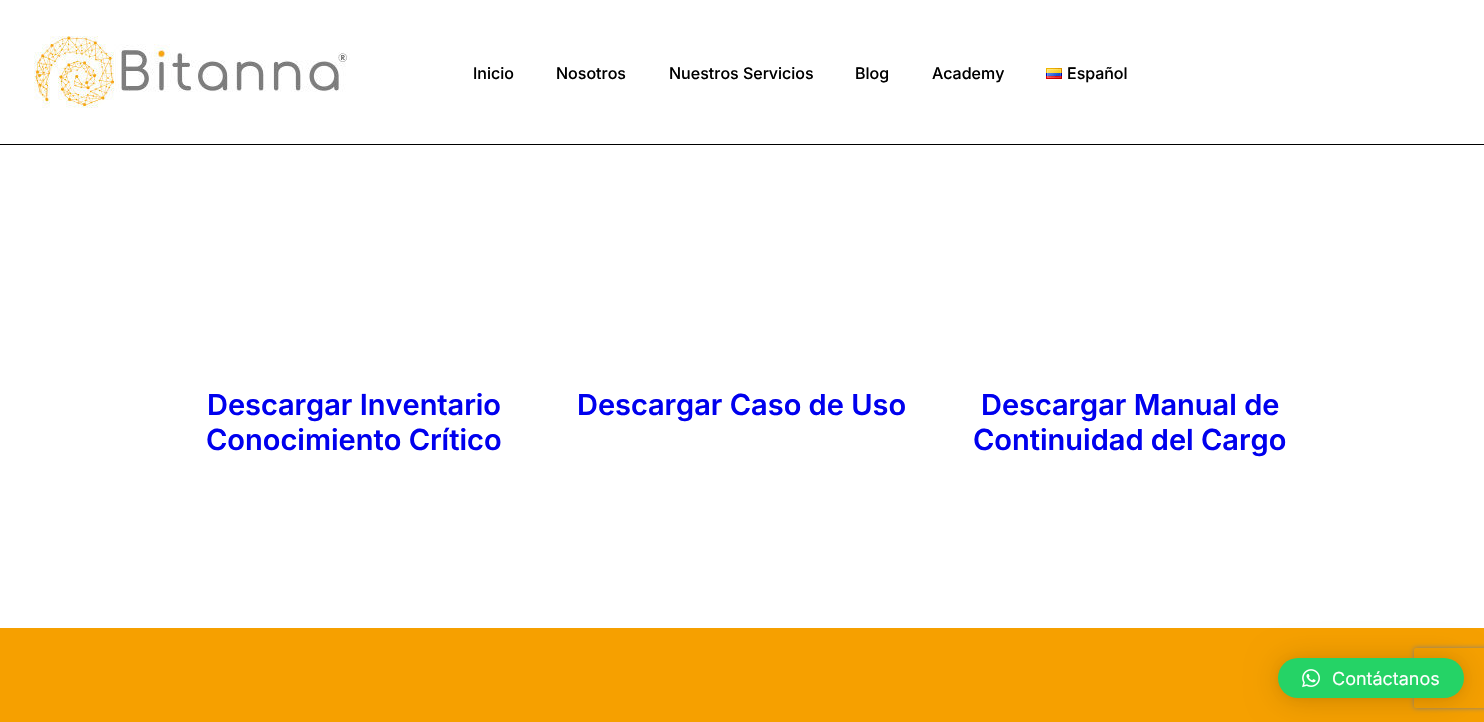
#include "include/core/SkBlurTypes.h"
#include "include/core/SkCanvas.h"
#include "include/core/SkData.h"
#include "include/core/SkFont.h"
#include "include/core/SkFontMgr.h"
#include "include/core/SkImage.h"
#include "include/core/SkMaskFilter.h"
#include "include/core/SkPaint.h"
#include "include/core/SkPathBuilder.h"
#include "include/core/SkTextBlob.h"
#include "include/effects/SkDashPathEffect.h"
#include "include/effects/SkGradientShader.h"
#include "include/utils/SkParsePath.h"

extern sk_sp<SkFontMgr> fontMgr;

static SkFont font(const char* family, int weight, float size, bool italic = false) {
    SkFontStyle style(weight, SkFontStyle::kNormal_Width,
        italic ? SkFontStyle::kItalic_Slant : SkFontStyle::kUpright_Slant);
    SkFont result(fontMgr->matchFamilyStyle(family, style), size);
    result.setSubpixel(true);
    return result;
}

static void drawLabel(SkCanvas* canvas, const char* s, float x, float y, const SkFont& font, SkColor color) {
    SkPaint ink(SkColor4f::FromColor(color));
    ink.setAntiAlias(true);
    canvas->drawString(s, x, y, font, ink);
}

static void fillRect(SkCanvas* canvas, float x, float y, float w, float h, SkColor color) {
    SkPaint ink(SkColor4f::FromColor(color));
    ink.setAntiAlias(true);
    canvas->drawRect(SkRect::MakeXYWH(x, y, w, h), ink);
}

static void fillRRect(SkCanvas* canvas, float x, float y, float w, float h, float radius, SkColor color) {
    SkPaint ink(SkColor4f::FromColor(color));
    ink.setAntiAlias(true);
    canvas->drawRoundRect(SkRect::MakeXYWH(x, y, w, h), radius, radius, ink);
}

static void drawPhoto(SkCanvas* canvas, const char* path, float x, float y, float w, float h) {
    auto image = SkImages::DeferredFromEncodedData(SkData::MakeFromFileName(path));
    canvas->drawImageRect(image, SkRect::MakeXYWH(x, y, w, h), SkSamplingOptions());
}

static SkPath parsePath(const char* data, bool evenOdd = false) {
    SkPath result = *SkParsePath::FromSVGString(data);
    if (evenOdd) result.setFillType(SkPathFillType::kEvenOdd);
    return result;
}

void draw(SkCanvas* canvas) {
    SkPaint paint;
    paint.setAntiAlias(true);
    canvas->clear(0xFFFFFFFF);
    drawPhoto(canvas, "assets/img1.png", 34, 36, 316, 72);
    SkFont font1 = font("Inter", 500, 16);
    drawLabel(canvas, "Inicio", 473, 79, font1, 0xFF000000);
    drawLabel(canvas, "Nosotros", 556, 79, font1, 0xFF000000);
    drawLabel(canvas, "Nuestros Servicios", 669, 79, font1, 0xFF000000);
    drawLabel(canvas, "Blog", 855, 79, font1, 0xFF000000);
    drawLabel(canvas, "Academy", 932, 79, font1, 0xFF000000);
    drawPhoto(canvas, "assets/img2.png", 1046, 68, 16, 11);
    drawLabel(canvas, "Español", 1067, 79, font1, 0xFF000000);
    fillRect(canvas, 0, 144, 1484, 1, 0xFF000000);
    SkFont font2 = font("Inter", 600, 29);
    drawLabel(canvas, "Descargar Inventario", 207, 415, font2, 0xFF0000EE);
    drawLabel(canvas, "Conocimiento Crítico", 206, 450, font2, 0xFF0000EE);
    drawLabel(canvas, "Descargar Caso de Uso", 577, 415, font2, 0xFF0000EE);
    drawLabel(canvas, "Descargar Manual de", 981, 415, font2, 0xFF0000EE);
    drawLabel(canvas, "Continuidad del Cargo", 973, 450, font2, 0xFF0000EE);
    fillRect(canvas, 0, 628, 1484, 94, 0xFFF6A000);
    paint.setColor(0x29000000);
    paint.setMaskFilter(SkMaskFilter::MakeBlur(kNormal_SkBlurStyle, 16));
    canvas->drawRoundRect(SkRect::MakeXYWH(1278, 660, 186, 40), 20, 20, paint);
    paint.setMaskFilter(nullptr);
    paint.setColor(0x0F000000);
    paint.setMaskFilter(SkMaskFilter::MakeBlur(kNormal_SkBlurStyle, 3));
    canvas->drawRoundRect(SkRect::MakeXYWH(1278, 659, 186, 40), 20, 20, paint);
    paint.setMaskFilter(nullptr);
    canvas->save();
    canvas->clipPath(parsePath("M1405 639H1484V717H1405ZM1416 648H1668C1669 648 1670 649 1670 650V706C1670 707 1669 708 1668 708H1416C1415 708 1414 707 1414 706V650C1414 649 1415 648 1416 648Z", true), true);
    paint.setColor(0xFF808080);
    paint.setMaskFilter(SkMaskFilter::MakeBlur(kNormal_SkBlurStyle, 2.5f));
    canvas->drawRoundRect(SkRect::MakeXYWH(1414, 648, 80, 60), 2, 2, paint);
    paint.setMaskFilter(nullptr);
    canvas->restore();
    fillRRect(canvas, 1278, 658, 186, 40, 20, 0xFF25D366);
    drawPhoto(canvas, "assets/img3.png", 1302, 669, 18, 19);
    SkFont font3 = font("Inter", 400, 18);
    drawLabel(canvas, "Contáctanos", 1332, 685, font3, 0xFFFFFFFF);
}
